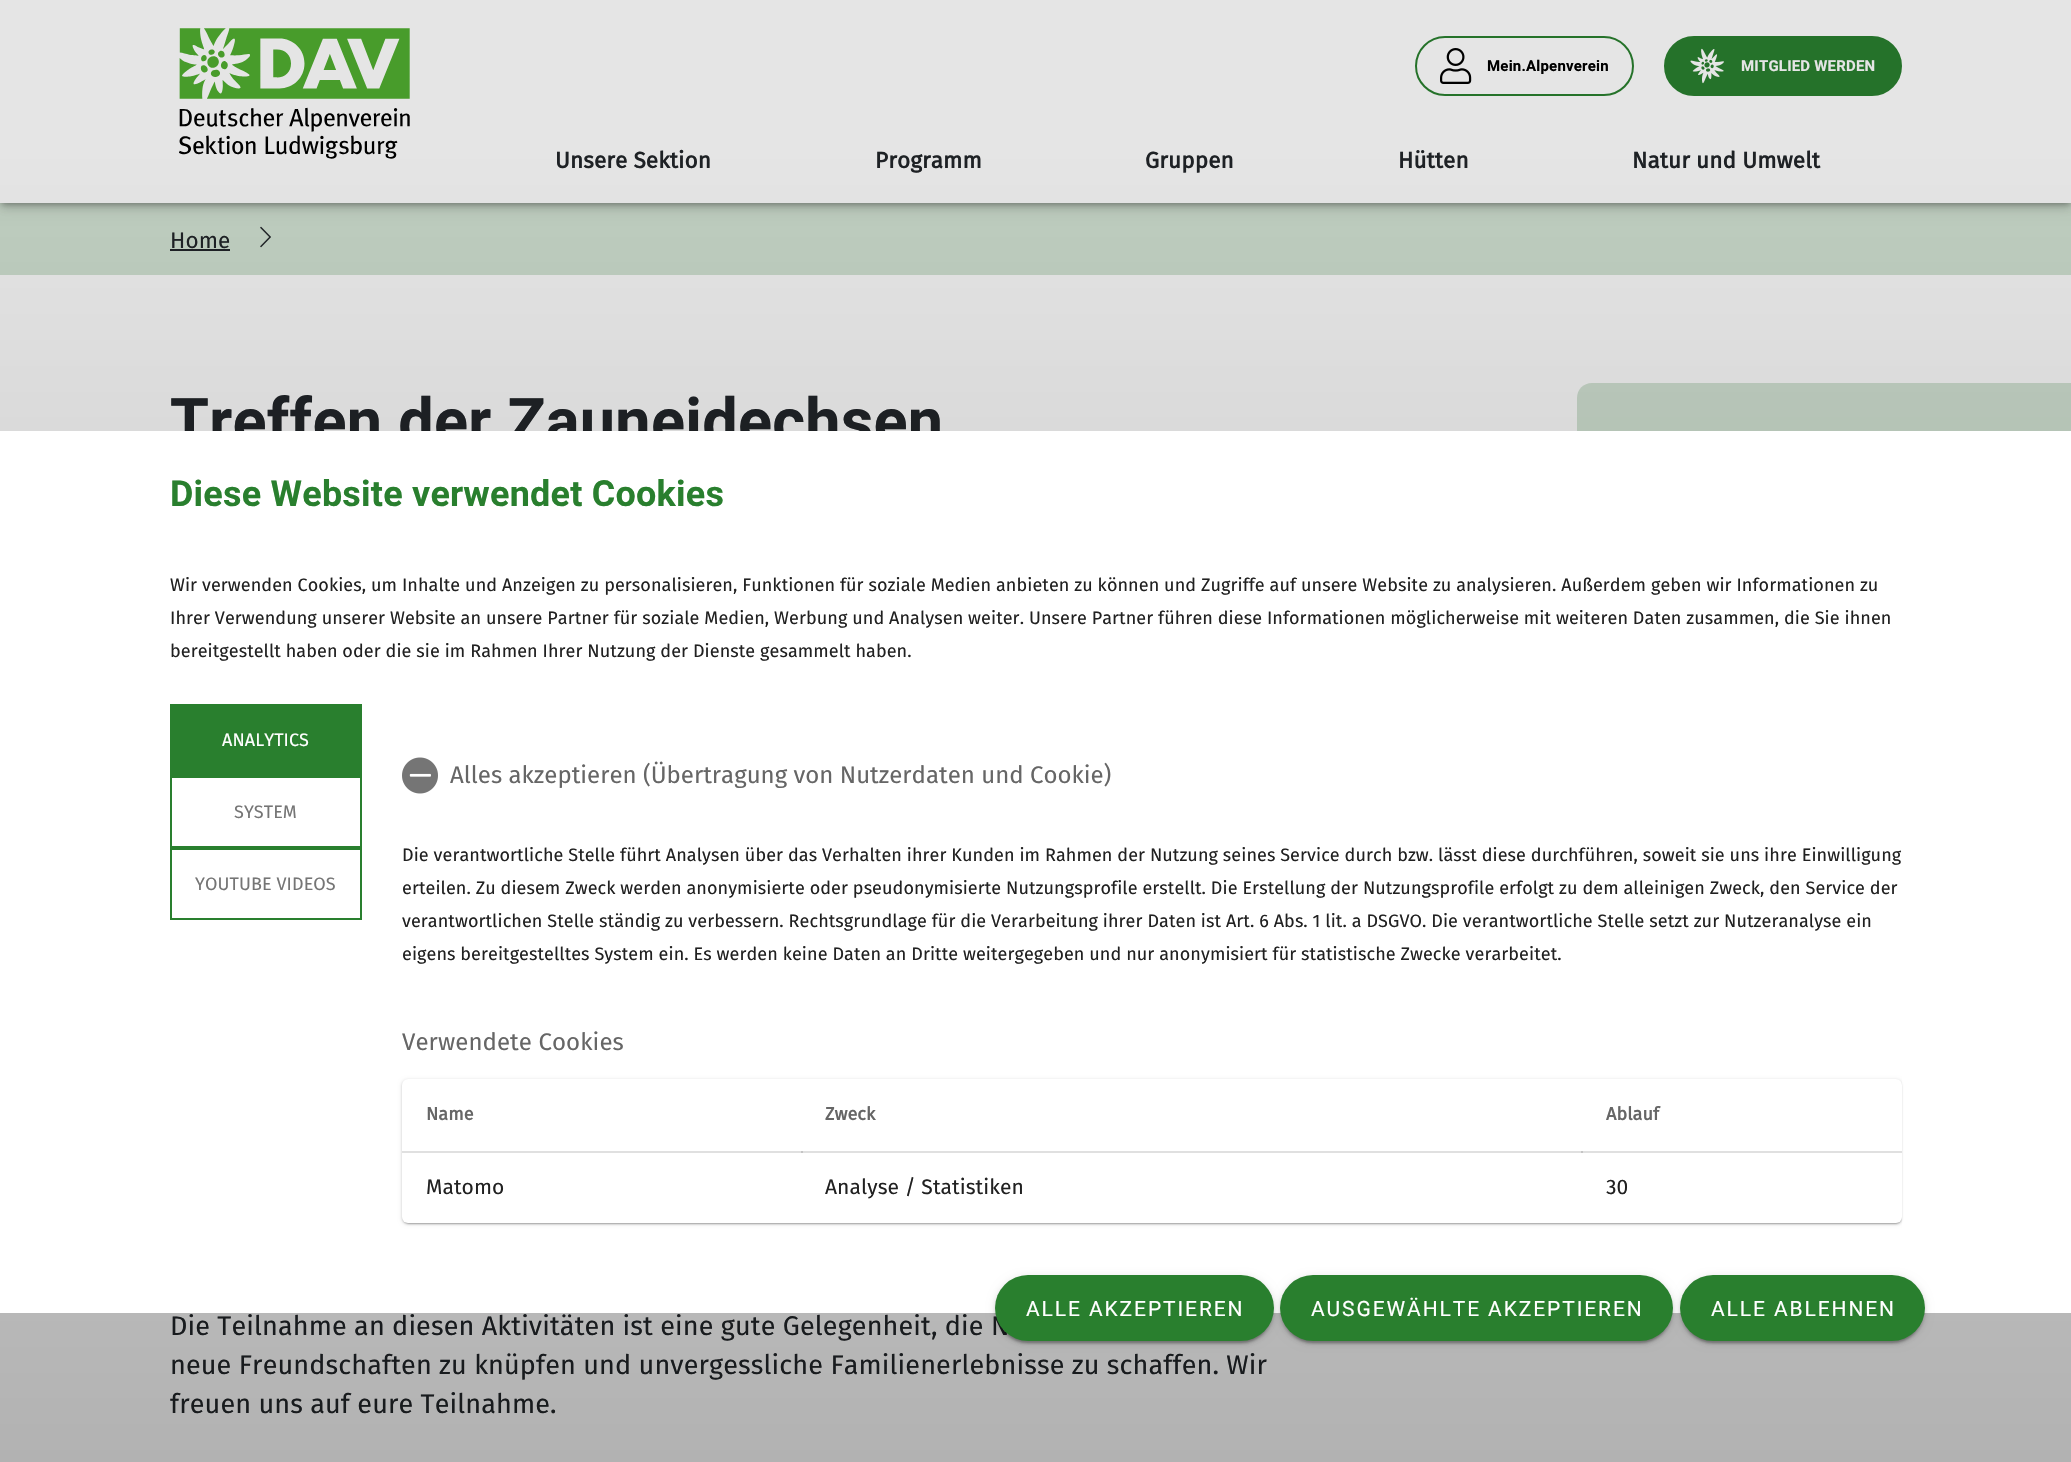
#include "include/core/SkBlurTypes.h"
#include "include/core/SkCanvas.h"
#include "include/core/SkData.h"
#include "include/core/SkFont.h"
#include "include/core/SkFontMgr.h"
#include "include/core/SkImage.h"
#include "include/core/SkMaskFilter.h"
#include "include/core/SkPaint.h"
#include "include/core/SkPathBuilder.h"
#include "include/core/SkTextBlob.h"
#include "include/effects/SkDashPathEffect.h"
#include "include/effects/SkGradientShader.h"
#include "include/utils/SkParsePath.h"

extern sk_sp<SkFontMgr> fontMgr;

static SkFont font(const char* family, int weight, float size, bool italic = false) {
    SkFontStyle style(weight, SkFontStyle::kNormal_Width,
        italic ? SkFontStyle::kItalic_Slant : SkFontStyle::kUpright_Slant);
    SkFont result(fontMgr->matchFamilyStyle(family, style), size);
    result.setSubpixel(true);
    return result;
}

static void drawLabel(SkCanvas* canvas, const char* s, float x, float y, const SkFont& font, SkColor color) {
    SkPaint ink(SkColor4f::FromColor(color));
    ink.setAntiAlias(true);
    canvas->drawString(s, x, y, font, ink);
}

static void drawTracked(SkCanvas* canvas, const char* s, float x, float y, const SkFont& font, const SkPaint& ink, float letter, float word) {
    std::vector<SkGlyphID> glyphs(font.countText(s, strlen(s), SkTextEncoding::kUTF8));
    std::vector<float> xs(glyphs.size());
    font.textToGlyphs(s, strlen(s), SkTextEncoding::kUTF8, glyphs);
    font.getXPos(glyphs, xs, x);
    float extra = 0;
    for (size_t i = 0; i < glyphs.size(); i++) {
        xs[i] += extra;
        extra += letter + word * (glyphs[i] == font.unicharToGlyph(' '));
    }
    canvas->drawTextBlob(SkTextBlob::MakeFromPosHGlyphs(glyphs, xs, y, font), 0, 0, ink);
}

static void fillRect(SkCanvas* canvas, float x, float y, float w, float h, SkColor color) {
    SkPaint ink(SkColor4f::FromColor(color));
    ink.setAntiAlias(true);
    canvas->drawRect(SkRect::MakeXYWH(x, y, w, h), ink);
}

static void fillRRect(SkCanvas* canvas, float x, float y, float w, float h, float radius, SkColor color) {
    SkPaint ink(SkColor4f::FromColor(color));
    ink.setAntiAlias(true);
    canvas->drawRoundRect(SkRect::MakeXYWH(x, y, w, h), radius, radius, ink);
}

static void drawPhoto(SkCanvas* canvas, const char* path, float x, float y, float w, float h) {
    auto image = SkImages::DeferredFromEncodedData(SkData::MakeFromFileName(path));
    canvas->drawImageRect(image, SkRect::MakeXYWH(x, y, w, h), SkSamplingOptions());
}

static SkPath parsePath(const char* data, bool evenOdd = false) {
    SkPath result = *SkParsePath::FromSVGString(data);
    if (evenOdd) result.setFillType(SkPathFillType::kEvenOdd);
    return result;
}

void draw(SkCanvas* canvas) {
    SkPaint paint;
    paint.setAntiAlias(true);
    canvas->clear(0xFFFFFFFF);
    fillRect(canvas, 0, 203, 2071, 72, 0xFFD4E5D5);
    drawPhoto(canvas, "assets/img4.png", 260, 226, 11, 22);
    paint.setColor(0x1A000000);
    paint.setMaskFilter(SkMaskFilter::MakeBlur(kNormal_SkBlurStyle, 7.5f));
    canvas->drawRect(SkRect::MakeXYWH(0, 2, 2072, 202), paint);
    paint.setMaskFilter(nullptr);
    paint.setMaskFilter(SkMaskFilter::MakeBlur(kNormal_SkBlurStyle, 4));
    canvas->drawRect(SkRect::MakeXYWH(0, 6, 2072, 203), paint);
    paint.setMaskFilter(nullptr);
    paint.setColor(0x4D000000);
    paint.setMaskFilter(SkMaskFilter::MakeBlur(kNormal_SkBlurStyle, 3));
    canvas->drawRect(SkRect::MakeXYWH(2, 5, 2068, 199), paint);
    paint.setMaskFilter(nullptr);
    fillRect(canvas, 0, 0, 2071, 203, 0xFFFFFFFF);
    drawPhoto(canvas, "assets/img1.png", 179, 28, 231, 131);
    paint.setStroke(true);
    paint.setStrokeWidth(2);
    paint.setColor(0xFF297F2E);
    canvas->drawRoundRect(SkRect::MakeXYWH(1416, 37, 217, 58), 29, 29, paint);
    drawPhoto(canvas, "assets/img2.png", 1440, 48, 32, 36);
    SkFont font1 = font("Roboto", 700, 15);
    paint.setStroke(false);
    paint.setColor(0xFF000000);
    drawTracked(canvas, "Mein.Alpenverein", 1487, 71, font1, paint, 0.2f, 0);
    paint.setColor(0xFF297F2E);
    canvas->drawRoundRect(SkRect::MakeXYWH(1665, 37, 236, 58), 29, 29, paint);
    paint.setStroke(true);
    canvas->drawRoundRect(SkRect::MakeXYWH(1665, 37, 236, 58), 29, 29, paint);
    drawPhoto(canvas, "assets/img3.png", 1690, 48, 34, 36);
    paint.setStroke(false);
    paint.setColor(0xFFFFFFFF);
    drawTracked(canvas, "MITGLIED WERDEN", 1741, 71, font1, paint, 0.2f, 0);
    SkFont font2 = font("Fira Sans", 700, 22.5f);
    paint.setColor(0xFF212529);
    drawTracked(canvas, "Unsere Sektion", 555, 168, font2, paint, 0.1f, 0);
    drawTracked(canvas, "Programm", 875, 168, font2, paint, 0.1f, 0);
    drawTracked(canvas, "Gruppen", 1145, 168, font2, paint, 0.1f, 0);
    drawTracked(canvas, "Hütten", 1398, 168, font2, paint, 0.1f, 0);
    drawTracked(canvas, "Natur und Umwelt", 1632, 168, font2, paint, 0.1f, 0);
    SkFont font3 = font("Fira Sans", 400, 22.5f);
    drawTracked(canvas, "Home", 170, 248, font3, paint, 0.1f, 0);
    fillRect(canvas, 170, 249, 60, 2, 0xFF212529);
    SkFont font4 = font("Roboto", 700, 63);
    drawTracked(canvas, "Treffen der Zauneidechsen", 170, 443, font4, paint, 0.25f, 0);
    SkFont font5 = font("Fira Sans", 400, 27);
    drawTracked(canvas, "Die Teilnahme an diesen Aktivitäten ist eine gute Gelegenheit, die N", 170, 1335, font5, paint, 0.12f, 0);
    drawTracked(canvas, "neue Freundschaften zu knüpfen und unvergessliche Familienerlebnisse zu schaffen. Wir", 170, 1374, font5, paint, 0.12f, 0);
    drawTracked(canvas, "freuen uns auf eure Teilnahme.", 170, 1413, font5, paint, 0.12f, 0);
    paint.setColor(0xFFD4E5D5);
    canvas->drawPath(parsePath("M1592 383H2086V575H1592C1583.5 575 1577 568.5 1577 560V398C1577 389.5 1583.5 383 1592 383Z"), paint);
    {
        const SkColor colors[] = {0x1A000000, 0x4D000000};
        const float stops[] = {0.1f, 1};
        const SkPoint ends[] = {{1036, 0}, {1036, 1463}};
        paint.setShader(SkGradientShader::MakeLinear(ends, colors, stops, 2, SkTileMode::kClamp));
        paint.setAlpha(255);
    }
    canvas->drawRect(SkRect::MakeXYWH(0, 0, 2071, 1462), paint);
    fillRect(canvas, 0, 431, 2071, 882, 0xFFFFFFFF);
    SkFont font6 = font("Roboto", 700, 36);
    paint.setShader(nullptr);
    paint.setColor(0xFF297F2E);
    drawTracked(canvas, "Diese Website verwendet Cookies", 170, 506, font6, paint, 0.2f, 0);
    SkFont font7 = font("Fira Sans", 400, 18);
    paint.setColor(0xFF212121);
    drawTracked(canvas, "Wir verwenden Cookies, um Inhalte und Anzeigen zu personalisieren, Funktionen für soziale Medien anbieten zu können und Zugriffe auf unsere Website zu analysieren. Außerdem geben wir Informationen zu", 170, 591, font7, paint, 0.08f, 0);
    drawTracked(canvas, "Ihrer Verwendung unserer Website an unsere Partner für soziale Medien, Werbung und Analysen weiter. Unsere Partner führen diese Informationen möglicherweise mit weiteren Daten zusammen, die Sie ihnen", 170, 624, font7, paint, 0.08f, 0);
    drawTracked(canvas, "bereitgestellt haben oder die sie im Rahmen Ihrer Nutzung der Dienste gesammelt haben.", 170, 657, font7, paint, 0.08f, 0);
    fillRect(canvas, 170, 704, 192, 72, 0xFF297F2E);
    paint.setColor(0xFFFFFFFF);
    drawTracked(canvas, "ANALYTICS", 222, 746, font7, paint, 0.08f, 0);
    paint.setStroke(true);
    paint.setColor(0xFF297F2E);
    canvas->drawRect(SkRect::MakeXYWH(171, 777, 190, 70), paint);
    paint.setStroke(false);
    paint.setColor(0xFF757575);
    drawTracked(canvas, "SYSTEM", 234, 818, font7, paint, 0.08f, 0);
    paint.setStroke(true);
    paint.setColor(0xFF297F2E);
    canvas->drawRect(SkRect::MakeXYWH(171, 849, 190, 70), paint);
    paint.setStroke(false);
    paint.setColor(0xFF757575);
    drawTracked(canvas, "YOUTUBE VIDEOS", 195, 890, font7, paint, 0.08f, 0);
    drawPhoto(canvas, "assets/img5.png", 402, 757, 36, 37);
    SkFont font8 = font("Fira Sans", 400, 24);
    drawLabel(canvas, "Alles akzeptieren (Übertragung von Nutzerdaten und Cookie)", 450, 783, font8, 0xFF666666);
    paint.setColor(0xFF212121);
    drawTracked(canvas, "Die verantwortliche Stelle führt Analysen über das Verhalten ihrer Kunden im Rahmen der Nutzung seines Service durch bzw. lässt diese durchführen, soweit sie uns ihre Einwilligung", 402, 861, font7, paint, 0.08f, 0);
    drawTracked(canvas, "erteilen. Zu diesem Zweck werden anonymisierte oder pseudonymisierte Nutzungsprofile erstellt. Die Erstellung der Nutzungsprofile erfolgt zu dem alleinigen Zweck, den Service der", 402, 894, font7, paint, 0.08f, 0);
    drawTracked(canvas, "verantwortlichen Stelle ständig zu verbessern. Rechtsgrundlage für die Verarbeitung ihrer Daten ist Art. 6 Abs. 1 lit. a DSGVO. Die verantwortliche Stelle setzt zur Nutzeranalyse ein", 402, 927, font7, paint, 0.08f, 0);
    drawTracked(canvas, "eigens bereitgestelltes System ein. Es werden keine Daten an Dritte weitergegeben und nur anonymisiert für statistische Zwecke verarbeitet.", 402, 960, font7, paint, 0.08f, 0);
    paint.setColor(0xFF666666);
    drawTracked(canvas, "Verwendete Cookies", 402, 1050, font8, paint, 0.08f, 0);
    canvas->save();
    canvas->clipRect(SkRect::MakeXYWH(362, 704, 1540, 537));
    paint.setColor(0x1F000000);
    paint.setMaskFilter(SkMaskFilter::MakeBlur(kNormal_SkBlurStyle, 2));
    canvas->drawRoundRect(SkRect::MakeXYWH(402, 1080, 1500, 144), 6, 6, paint);
    paint.setMaskFilter(nullptr);
    canvas->restore();
    paint.setColor(0x24000000);
    paint.setMaskFilter(SkMaskFilter::MakeBlur(kNormal_SkBlurStyle, 1));
    canvas->drawRoundRect(SkRect::MakeXYWH(402, 1080, 1500, 144), 6, 6, paint);
    paint.setMaskFilter(nullptr);
    paint.setColor(0x33000000);
    paint.setMaskFilter(SkMaskFilter::MakeBlur(kNormal_SkBlurStyle, 1));
    canvas->drawRoundRect(SkRect::MakeXYWH(404, 1083, 1497, 141), 5, 5, paint);
    paint.setMaskFilter(nullptr);
    fillRRect(canvas, 402, 1079, 1500, 144, 6, 0xFFFFFFFF);
    fillRect(canvas, 1581, 1151, 321, 2, 0xFFE0E0E0);
    fillRect(canvas, 801, 1151, 782, 2, 0x1F000000);
    fillRect(canvas, 402, 1151, 401, 2, 0x1F000000);
    SkFont font9 = font("Fira Sans", 700, 18);
    paint.setColor(0xFF666666);
    drawTracked(canvas, "Name", 426, 1120, font9, paint, 0.08f, 0);
    drawTracked(canvas, "Zweck", 825, 1120, font9, paint, 0.08f, 0);
    drawTracked(canvas, "Ablauf", 1606, 1120, font9, paint, 0.08f, 0);
    SkFont font10 = font("Fira Sans", 400, 21);
    paint.setColor(0xFF212121);
    drawTracked(canvas, "Matomo", 426, 1194, font10, paint, 0.08f, 0);
    drawTracked(canvas, "Analyse / Statistiken", 825, 1194, font10, paint, 0.08f, 0);
    drawTracked(canvas, "30", 1606, 1194, font10, paint, 0.08f, 0);
    paint.setColor(0x1F000000);
    paint.setMaskFilter(SkMaskFilter::MakeBlur(kNormal_SkBlurStyle, 4));
    canvas->drawRoundRect(SkRect::MakeXYWH(995, 1277, 279, 66), 33, 33, paint);
    paint.setMaskFilter(nullptr);
    paint.setColor(0x24000000);
    paint.setMaskFilter(SkMaskFilter::MakeBlur(kNormal_SkBlurStyle, 1.5f));
    canvas->drawRoundRect(SkRect::MakeXYWH(995, 1278, 279, 66), 33, 33, paint);
    paint.setMaskFilter(nullptr);
    paint.setColor(0x33000000);
    paint.setMaskFilter(SkMaskFilter::MakeBlur(kNormal_SkBlurStyle, 1));
    canvas->drawRoundRect(SkRect::MakeXYWH(998, 1283, 273, 60), 30, 30, paint);
    paint.setMaskFilter(nullptr);
    fillRRect(canvas, 995, 1275, 279, 66, 33, 0xFF297F2E);
    SkFont font11 = font("Roboto", 400, 21);
    paint.setColor(0xFFFFFFFF);
    drawTracked(canvas, "ALLE AKZEPTIEREN", 1026, 1316, font11, paint, 1.9f, 0);
    paint.setColor(0x1F000000);
    paint.setMaskFilter(SkMaskFilter::MakeBlur(kNormal_SkBlurStyle, 4));
    canvas->drawRoundRect(SkRect::MakeXYWH(1280, 1277, 393, 66), 33, 33, paint);
    paint.setMaskFilter(nullptr);
    paint.setColor(0x24000000);
    paint.setMaskFilter(SkMaskFilter::MakeBlur(kNormal_SkBlurStyle, 1.5f));
    canvas->drawRoundRect(SkRect::MakeXYWH(1280, 1278, 393, 66), 33, 33, paint);
    paint.setMaskFilter(nullptr);
    paint.setColor(0x33000000);
    paint.setMaskFilter(SkMaskFilter::MakeBlur(kNormal_SkBlurStyle, 1));
    canvas->drawRoundRect(SkRect::MakeXYWH(1283, 1283, 387, 60), 30, 30, paint);
    paint.setMaskFilter(nullptr);
    fillRRect(canvas, 1280, 1275, 393, 66, 33, 0xFF297F2E);
    paint.setColor(0xFFFFFFFF);
    drawTracked(canvas, "AUSGEWÄHLTE AKZEPTIEREN", 1311, 1316, font11, paint, 1.9f, 0);
    paint.setColor(0x1F000000);
    paint.setMaskFilter(SkMaskFilter::MakeBlur(kNormal_SkBlurStyle, 4));
    canvas->drawRoundRect(SkRect::MakeXYWH(1680, 1277, 245, 66), 33, 33, paint);
    paint.setMaskFilter(nullptr);
    paint.setColor(0x24000000);
    paint.setMaskFilter(SkMaskFilter::MakeBlur(kNormal_SkBlurStyle, 1.5f));
    canvas->drawRoundRect(SkRect::MakeXYWH(1680, 1278, 245, 66), 33, 33, paint);
    paint.setMaskFilter(nullptr);
    paint.setColor(0x33000000);
    paint.setMaskFilter(SkMaskFilter::MakeBlur(kNormal_SkBlurStyle, 1));
    canvas->drawRoundRect(SkRect::MakeXYWH(1683, 1283, 239, 60), 30, 30, paint);
    paint.setMaskFilter(nullptr);
    fillRRect(canvas, 1680, 1275, 245, 66, 33, 0xFF297F2E);
    paint.setColor(0xFFFFFFFF);
    drawTracked(canvas, "ALLE ABLEHNEN", 1711, 1316, font11, paint, 1.9f, 0);
}
